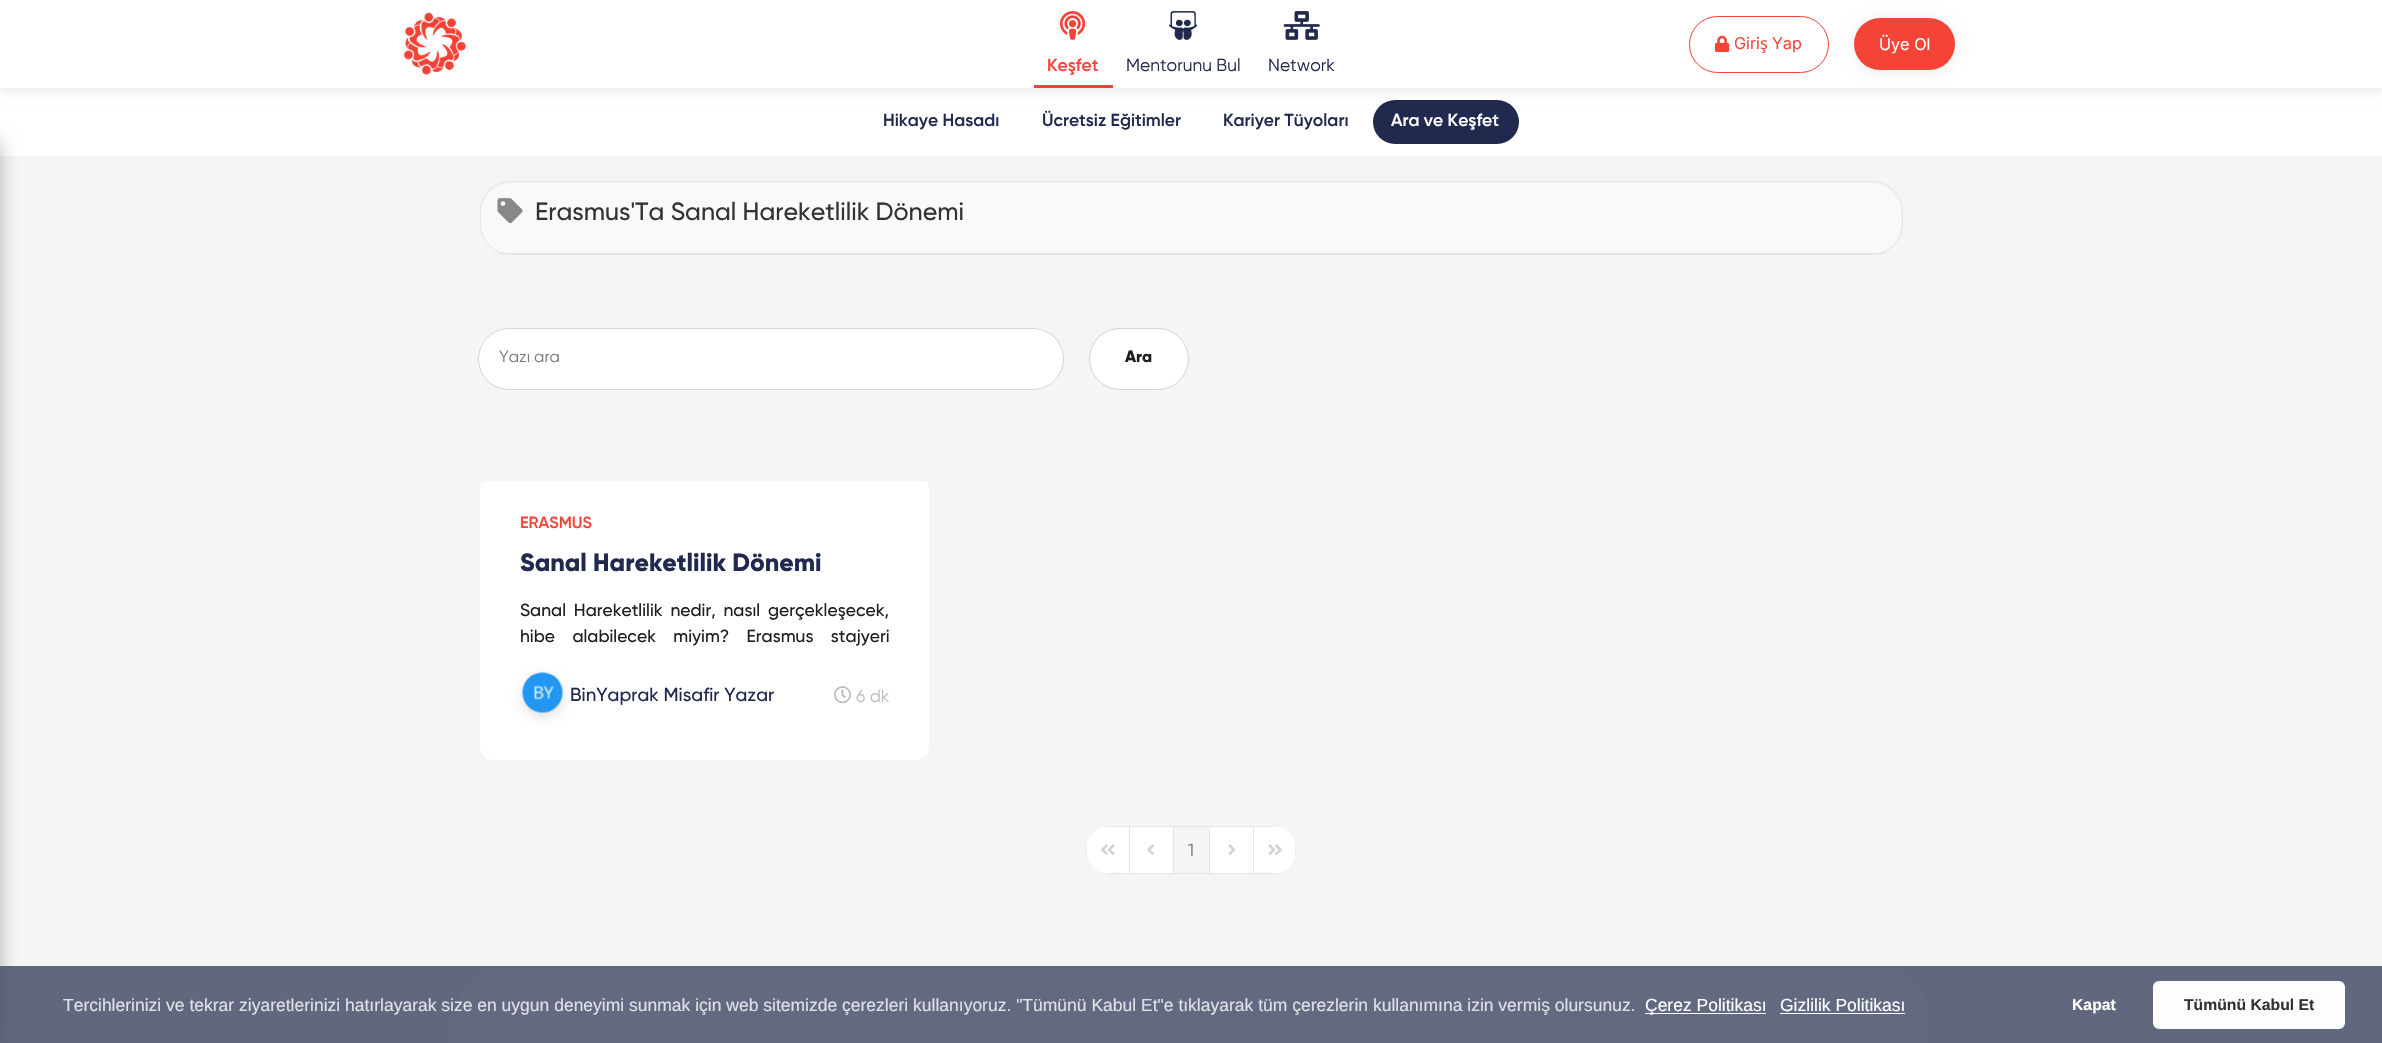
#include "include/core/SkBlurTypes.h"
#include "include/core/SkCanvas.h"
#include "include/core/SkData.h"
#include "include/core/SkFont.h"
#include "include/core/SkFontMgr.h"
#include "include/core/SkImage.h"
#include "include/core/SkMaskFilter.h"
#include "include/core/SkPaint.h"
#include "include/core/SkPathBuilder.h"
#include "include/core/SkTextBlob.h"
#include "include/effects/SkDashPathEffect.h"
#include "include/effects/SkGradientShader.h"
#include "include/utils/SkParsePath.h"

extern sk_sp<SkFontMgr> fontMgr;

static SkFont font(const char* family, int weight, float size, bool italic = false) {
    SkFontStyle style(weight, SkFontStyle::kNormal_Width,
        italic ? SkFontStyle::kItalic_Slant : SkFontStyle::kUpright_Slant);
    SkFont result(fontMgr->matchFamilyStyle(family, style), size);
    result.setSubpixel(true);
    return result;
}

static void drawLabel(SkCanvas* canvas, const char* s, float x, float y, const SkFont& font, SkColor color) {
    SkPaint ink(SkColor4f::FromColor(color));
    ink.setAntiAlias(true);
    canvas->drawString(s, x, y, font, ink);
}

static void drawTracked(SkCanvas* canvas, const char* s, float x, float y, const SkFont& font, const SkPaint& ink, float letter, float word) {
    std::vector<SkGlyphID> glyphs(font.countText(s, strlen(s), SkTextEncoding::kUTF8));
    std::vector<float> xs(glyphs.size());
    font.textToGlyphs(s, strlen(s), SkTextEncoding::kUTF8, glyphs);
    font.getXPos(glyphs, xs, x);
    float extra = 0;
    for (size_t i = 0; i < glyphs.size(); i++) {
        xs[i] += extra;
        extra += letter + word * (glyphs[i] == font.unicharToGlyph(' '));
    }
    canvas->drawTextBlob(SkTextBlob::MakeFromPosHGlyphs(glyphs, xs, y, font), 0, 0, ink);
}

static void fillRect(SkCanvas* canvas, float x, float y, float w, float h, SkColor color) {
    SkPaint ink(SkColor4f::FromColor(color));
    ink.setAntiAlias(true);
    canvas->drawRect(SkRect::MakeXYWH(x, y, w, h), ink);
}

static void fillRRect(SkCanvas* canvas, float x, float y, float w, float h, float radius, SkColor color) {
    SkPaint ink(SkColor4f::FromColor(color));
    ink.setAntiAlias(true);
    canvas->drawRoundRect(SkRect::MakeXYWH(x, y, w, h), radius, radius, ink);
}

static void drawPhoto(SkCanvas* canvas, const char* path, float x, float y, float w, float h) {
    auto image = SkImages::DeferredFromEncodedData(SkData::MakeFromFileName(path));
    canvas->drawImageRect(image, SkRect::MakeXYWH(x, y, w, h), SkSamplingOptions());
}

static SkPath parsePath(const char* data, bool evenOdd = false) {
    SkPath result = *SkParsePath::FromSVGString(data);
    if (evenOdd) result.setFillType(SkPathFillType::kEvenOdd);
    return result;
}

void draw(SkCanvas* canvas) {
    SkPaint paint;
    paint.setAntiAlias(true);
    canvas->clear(0xFFF5F5F5);
    fillRect(canvas, 0, 88, 2382, 68, 0xFFFFFFFF);
    paint.setColor(0x4D000000);
    paint.setMaskFilter(SkMaskFilter::MakeBlur(kNormal_SkBlurStyle, 9.5f));
    canvas->drawRect(SkRect::MakeXYWH(-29, 143, 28, 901), paint);
    paint.setMaskFilter(nullptr);
    fillRRect(canvas, 1373, 100, 146, 44, 22, 0xFF21294E);
    paint.setColor(0x1A000000);
    paint.setMaskFilter(SkMaskFilter::MakeBlur(kNormal_SkBlurStyle, 6));
    canvas->drawRect(SkRect::MakeXYWH(0, 3, 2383, 87), paint);
    paint.setMaskFilter(nullptr);
    fillRect(canvas, 0, 0, 2382, 88, 0xFFFFFFFF);
    drawPhoto(canvas, "assets/img1.png", 403, 12, 63, 63);
    paint.setStroke(true);
    paint.setStrokeWidth(1);
    paint.setColor(0xFFF44337);
    canvas->drawRoundRect(SkRect::MakeXYWH(1689.5f, 16.5f, 139, 56), 28, 28, paint);
    drawPhoto(canvas, "assets/img2.png", 1715, 35, 15, 17);
    SkFont font1 = font("Inter", 400, 16.25f);
    drawLabel(canvas, "Giri", 1734, 49, font1, 0xFFF44337);
    SkFont font2 = font("Noto Sans", 400, 16.25f);
    drawLabel(canvas, "ş", 1760, 49, font2, 0xFFF44337);
    drawLabel(canvas, "Yap", 1772, 49, font1, 0xFFF44337);
    paint.setStroke(false);
    paint.setColor(0x12000000);
    paint.setMaskFilter(SkMaskFilter::MakeBlur(kNormal_SkBlurStyle, 7));
    canvas->drawRoundRect(SkRect::MakeXYWH(1854, 20, 101, 53), 26.5f, 26.5f, paint);
    paint.setMaskFilter(nullptr);
    fillRRect(canvas, 1854, 18, 101, 52, 26, 0xFFF44337);
    drawLabel(canvas, "Üye Ol", 1879, 50, font1, 0xFFFFFFFF);
    fillRect(canvas, 1034, 85, 79, 3, 0xFFF44336);
    drawPhoto(canvas, "assets/img3.png", 1060, 11, 26, 29);
    SkFont font3 = font("Gilroy", 600, 17.5f);
    drawLabel(canvas, "Keşfet", 1047, 71, font3, 0xFFF44337);
    drawPhoto(canvas, "assets/img4.png", 1169, 11, 29, 29);
    SkFont font4 = font("Gilroy", 400, 17.5f);
    drawLabel(canvas, "Mentorunu Bul", 1126, 71, font4, 0xFF21294E);
    drawPhoto(canvas, "assets/img5.png", 1283, 11, 37, 29);
    drawLabel(canvas, "Network", 1268, 71, font4, 0xFF21294E);
    drawLabel(canvas, "Hikaye Hasadı", 883, 126, font3, 0xFF21294E);
    drawLabel(canvas, "Ücretsiz Eğitimler", 1042, 126, font3, 0xFF21294E);
    drawLabel(canvas, "Kariyer Tüyoları", 1223, 126, font3, 0xFF21294E);
    drawLabel(canvas, "Ara ve Keşfet", 1391, 126, font3, 0xFFFFFFFF);
    paint.setStroke(true);
    paint.setColor(0xFFE5E5E5);
    canvas->drawRoundRect(SkRect::MakeXYWH(480.5f, 181.5f, 1422, 73), 30.5f, 30.5f, paint);
    fillRRect(canvas, 481, 183, 1420, 71, 31, 0xFFF9F9F9);
    fillRect(canvas, 498, 253, 1388, 1, 0xFFE5E5E5);
    drawPhoto(canvas, "assets/img6.png", 497, 198, 26, 26);
    SkFont font5 = font("Gilroy", 500, 25);
    drawLabel(canvas, "Erasmus'Ta Sanal Hareketlilik Dönemi", 535, 220, font5, 0xFF333333);
    paint.setStroke(false);
    paint.setColor(0xFFFFFFFF);
    canvas->drawRoundRect(SkRect::MakeXYWH(478.5f, 328.5f, 585, 61), 30.5f, 30.5f, paint);
    paint.setStroke(true);
    paint.setColor(0xFFD5D5D5);
    canvas->drawRoundRect(SkRect::MakeXYWH(478.5f, 328.5f, 585, 61), 30.5f, 30.5f, paint);
    SkFont font6 = font("Gilroy", 400, 16.25f);
    drawLabel(canvas, "Yazı ara", 499, 362, font6, 0xFF777777);
    paint.setStroke(false);
    paint.setColor(0xFFFFFFFF);
    canvas->drawRoundRect(SkRect::MakeXYWH(1089.5f, 328.5f, 99, 61), 30.5f, 30.5f, paint);
    paint.setStroke(true);
    paint.setColor(0xFFD4D4D4);
    canvas->drawRoundRect(SkRect::MakeXYWH(1089.5f, 328.5f, 99, 61), 30.5f, 30.5f, paint);
    SkFont font7 = font("Gilroy", 800, 16.25f);
    drawLabel(canvas, "Ara", 1125, 362, font7, 0xFF1E1E1E);
    paint.setStroke(false);
    paint.setColor(0xFFFFFFFF);
    canvas->drawPath(parsePath("M486 481H923C926.5 481 929 483.5 929 487V741C929 751.5 920.5 760 910 760H499C488.5 760 480 751.5 480 741V487C480 483.5 482.5 481 486 481Z"), paint);
    fillRRect(canvas, 480, 481, 449, 279, 13, 0xFFFFFFFF);
    SkFont font8 = font("Gilroy", 600, 16.25f);
    drawLabel(canvas, "ERASMUS", 520, 528, font8, 0xFFF44337);
    SkFont font9 = font("Gilroy", 800, 25);
    drawLabel(canvas, "Sanal Hareketlilik Dönemi", 520, 571, font9, 0xFF21294E);
    SkFont font10 = font("Gilroy", 500, 17.5f);
    paint.setColor(0xFF1E1E1E);
    drawTracked(canvas, "Sanal Hareketlilik nedir, nasıl gerçekleşecek,", 520, 616, font10, paint, 0, 3.5f);
    drawTracked(canvas, "hibe alabilecek miyim? Erasmus stajyeri", 520, 642, font10, paint, 0, 13);
    paint.setColor(0x33000000);
    paint.setMaskFilter(SkMaskFilter::MakeBlur(kNormal_SkBlurStyle, 7));
    canvas->drawRoundRect(SkRect::MakeXYWH(525, 679, 35, 35), 17.5f, 17.5f, paint);
    paint.setMaskFilter(nullptr);
    drawPhoto(canvas, "assets/img7.png", 522, 672, 41, 41);
    SkFont font11 = font("Gilroy", 500, 18.75f);
    drawLabel(canvas, "BinYaprak Misafir Yazar", 570, 701, font11, 0xFF21294E);
    drawPhoto(canvas, "assets/img8.png", 834, 686, 17, 18);
    drawLabel(canvas, "6 dk", 856, 702, font4, 0xFFBBBBBB);
    paint.setColor(0xFFFFFFFF);
    canvas->drawPath(parsePath("M1110 826H1130V874H1110C1096.5 874 1086 863.5 1086 850C1086 836.5 1096.5 826 1110 826Z"), paint);
    paint.setColor(0xFFE5E5E5);
    canvas->drawPath(parsePath("M1110 826L1103 827H1129V873H1103C1111 875 1122 874 1130 874V826ZM1087 857C1086 852 1086 848 1087 843Z", true), paint);
    drawPhoto(canvas, "assets/img9.png", 1101, 844, 14, 11);
    paint.setColor(0xFFFFFFFF);
    canvas->drawRect(SkRect::MakeXYWH(1129.5f, 826.5f, 44, 47), paint);
    paint.setStroke(true);
    paint.setColor(0xFFE5E5E5);
    canvas->drawRect(SkRect::MakeXYWH(1129.5f, 826.5f, 44, 47), paint);
    drawPhoto(canvas, "assets/img10.png", 1147, 844, 7, 11);
    canvas->drawRect(SkRect::MakeXYWH(1173.5f, 826.5f, 36, 47), paint);
    drawLabel(canvas, "1", 1188, 856, font4, 0xFF777777);
    paint.setStroke(false);
    paint.setColor(0xFFFFFFFF);
    canvas->drawRect(SkRect::MakeXYWH(1209.5f, 826.5f, 44, 47), paint);
    paint.setStroke(true);
    paint.setColor(0xFFE5E5E5);
    canvas->drawRect(SkRect::MakeXYWH(1209.5f, 826.5f, 44, 47), paint);
    drawPhoto(canvas, "assets/img11.png", 1228, 844, 8, 11);
    paint.setStroke(false);
    paint.setColor(0xFFFFFFFF);
    canvas->drawPath(parsePath("M1253 826H1272C1285.5 826 1296 836.5 1296 850C1296 863.5 1285.5 874 1272 874H1253Z"), paint);
    paint.setColor(0xFFE5E5E5);
    canvas->drawPath(parsePath("M1253 826V874C1261 874 1271 875 1279 873H1254V827H1279L1272 826ZM1295 843V857C1296 852 1296 848 1295 843Z", true), paint);
    drawPhoto(canvas, "assets/img12.png", 1268, 844, 14, 11);
    fillRRect(canvas, 454, 969, 1475, 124, 50, 0xFFFFFFFF);
    fillRect(canvas, 0, 966, 2382, 77, 0xCC3D4363);
    SkFont font12 = font("Liberation Sans", 400, 17.5f);
    drawLabel(canvas, "Tercihlerinizi ve tekrar ziyaretlerinizi hatırlayarak size en uygun deneyimi sunmak için web sitemizde çerezleri kullanıyoruz. \"Tümünü Kabul Et\"e tıklayarak tüm çerezlerin kullanımına izin vermiş olursunuz.", 63, 1011, font12, 0xFFE0E1E6);
    fillRect(canvas, 1645, 1013, 121, 1, 0xFFFFFFFF);
    drawLabel(canvas, "Çerez Politikası", 1645, 1011, font12, 0xFFFFFFFF);
    drawLabel(canvas, "Gizlilik Politikası", 1780, 1011, font12, 0xFFFFFFFF);
    fillRect(canvas, 1780, 1013, 125, 1, 0xFFFFFFFF);
    SkFont font13 = font("Liberation Sans", 700, 15.75f);
    drawLabel(canvas, "Kapat", 2072, 1010, font13, 0xFFFFFFFF);
    paint.setColor(0xFFFDFDFD);
    canvas->drawRoundRect(SkRect::MakeXYWH(2154.5f, 982.5f, 189, 45), 4.5f, 4.5f, paint);
    paint.setStroke(true);
    paint.setStrokeWidth(3);
    canvas->drawRoundRect(SkRect::MakeXYWH(2154.5f, 982.5f, 189, 45), 4.5f, 4.5f, paint);
    drawLabel(canvas, "Tümünü Kabul Et", 2184, 1010, font13, 0xFF333333);
}
